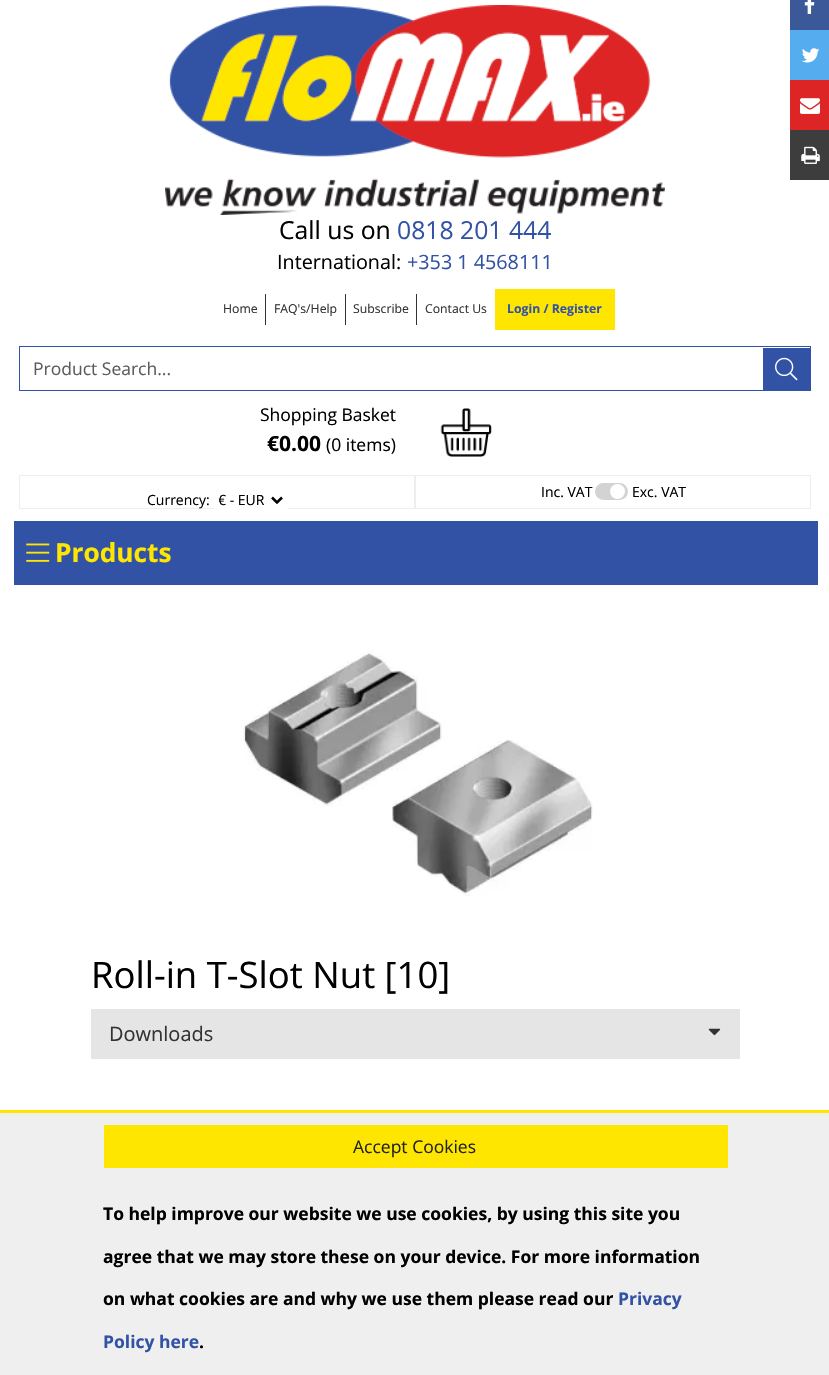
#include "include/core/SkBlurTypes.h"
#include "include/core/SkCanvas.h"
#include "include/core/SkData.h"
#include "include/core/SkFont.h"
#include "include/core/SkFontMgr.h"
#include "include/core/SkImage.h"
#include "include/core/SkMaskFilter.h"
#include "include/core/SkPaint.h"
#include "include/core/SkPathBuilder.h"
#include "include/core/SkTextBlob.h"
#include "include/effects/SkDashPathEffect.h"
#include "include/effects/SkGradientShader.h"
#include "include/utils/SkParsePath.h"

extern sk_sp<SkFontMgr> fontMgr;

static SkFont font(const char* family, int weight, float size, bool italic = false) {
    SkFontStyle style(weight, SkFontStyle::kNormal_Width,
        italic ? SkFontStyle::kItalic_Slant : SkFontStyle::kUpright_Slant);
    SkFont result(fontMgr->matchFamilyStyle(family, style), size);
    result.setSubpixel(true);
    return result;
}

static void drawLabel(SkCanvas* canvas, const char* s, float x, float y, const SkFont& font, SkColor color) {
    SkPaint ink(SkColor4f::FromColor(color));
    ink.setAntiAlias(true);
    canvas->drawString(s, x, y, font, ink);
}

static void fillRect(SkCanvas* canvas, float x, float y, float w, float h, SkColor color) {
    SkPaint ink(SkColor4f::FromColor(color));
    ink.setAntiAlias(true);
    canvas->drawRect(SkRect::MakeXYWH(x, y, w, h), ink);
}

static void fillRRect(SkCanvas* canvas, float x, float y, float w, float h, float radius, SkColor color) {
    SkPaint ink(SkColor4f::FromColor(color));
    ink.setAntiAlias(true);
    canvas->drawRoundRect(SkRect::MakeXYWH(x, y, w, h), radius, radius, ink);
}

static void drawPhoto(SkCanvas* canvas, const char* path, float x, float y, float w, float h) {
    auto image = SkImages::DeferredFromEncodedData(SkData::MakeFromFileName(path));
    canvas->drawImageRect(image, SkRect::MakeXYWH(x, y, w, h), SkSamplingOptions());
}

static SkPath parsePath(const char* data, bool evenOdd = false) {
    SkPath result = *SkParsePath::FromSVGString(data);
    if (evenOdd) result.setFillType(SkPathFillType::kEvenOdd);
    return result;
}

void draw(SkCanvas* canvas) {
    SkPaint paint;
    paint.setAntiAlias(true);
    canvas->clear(0xFFFFFFFF);
    fillRect(canvas, 790, 0, 39, 30, 0xFF3B5998);
    drawPhoto(canvas, "assets/img1.png", 804, 0, 11, 14);
    fillRect(canvas, 790, 30, 39, 50, 0xFF55ACEE);
    drawPhoto(canvas, "assets/img2.png", 802, 48, 18, 15);
    fillRect(canvas, 790, 80, 39, 50, 0xFFDE2526);
    drawPhoto(canvas, "assets/img3.png", 800, 98, 20, 16);
    fillRect(canvas, 790, 130, 39, 50, 0xFF3D3D3D);
    drawPhoto(canvas, "assets/img4.png", 801, 146, 19, 18);
    drawPhoto(canvas, "assets/img5.png", 165, 5, 500, 210);
    SkFont font1 = font("Open Sans", 400, 24.75f);
    drawLabel(canvas, "Call us on", 279, 239, font1, 0xFF000000);
    drawLabel(canvas, "0818 201 444", 397, 239, font1, 0xFF3253A5);
    SkFont font2 = font("Open Sans", 400, 19.75f);
    drawLabel(canvas, "International:", 277, 269, font2, 0xFF000000);
    drawLabel(canvas, "+353 1 4568111", 407, 269, font2, 0xFF3253A5);
    SkFont font3 = font("Open Sans", 400, 12.25f);
    drawLabel(canvas, "Home", 223, 313, font3, 0xFF333333);
    fillRect(canvas, 265, 294, 1, 31, 0xFF333333);
    drawLabel(canvas, "FAQ's/Help", 274, 313, font3, 0xFF333333);
    fillRect(canvas, 345, 294, 1, 31, 0xFF333333);
    drawLabel(canvas, "Subscribe", 353, 313, font3, 0xFF333333);
    fillRect(canvas, 416, 294, 1, 31, 0xFF333333);
    drawLabel(canvas, "Contact Us", 425, 313, font3, 0xFF333333);
    fillRect(canvas, 495, 289, 120, 41, 0xFFFFE600);
    SkFont font4 = font("Open Sans", 700, 12.25f);
    drawLabel(canvas, "Login / Register", 507, 313, font4, 0xFF3253A5);
    paint.setStroke(true);
    paint.setStrokeWidth(1);
    paint.setColor(0xFF3253A5);
    canvas->drawRect(SkRect::MakeXYWH(19.5f, 346.5f, 791, 44), paint);
    SkFont font5 = font("Open Sans", 400, 17.5f);
    drawLabel(canvas, "Product Search...", 33, 375, font5, 0xFF595C5F);
    fillRect(canvas, 763, 348, 47, 42, 0xFF3253A5);
    drawPhoto(canvas, "assets/img6.png", 775, 357, 23, 24);
    drawLabel(canvas, "Shopping Basket", 260, 421, font5, 0xFF000000);
    SkFont font6 = font("Open Sans", 700, 21);
    drawLabel(canvas, "€0.00", 267, 451, font6, 0xFF000000);
    drawLabel(canvas, "(0 items)", 326, 451, font5, 0xFF000000);
    drawPhoto(canvas, "assets/img7.png", 440, 408, 52, 49);
    paint.setColor(0xFFEEEEEE);
    canvas->drawRect(SkRect::MakeXYWH(415.5f, 475.5f, 395, 33), paint);
    SkFont font7 = font("Open Sans", 400, 14);
    drawLabel(canvas, "Inc. VAT", 541, 497, font7, 0xFF000000);
    fillRRect(canvas, 595, 483, 33, 17, 8.5f, 0xFFD3D3D3);
    paint.setStroke(false);
    paint.setColor(0xFFFFFFFF);
    canvas->drawCircle(617.5f, 491.5f, 7.5f, paint);
    drawLabel(canvas, "Exc. VAT", 632, 497, font7, 0xFF000000);
    paint.setStroke(true);
    paint.setColor(0xFFEEEEEE);
    canvas->drawRect(SkRect::MakeXYWH(19.5f, 475.5f, 395, 33), paint);
    drawLabel(canvas, "Currency:", 147, 505, font7, 0xFF000000);
    fillRect(canvas, 214, 508, 74, 1, 0xFFFFFFFF);
    paint.setStrokeWidth(2.5f);
    paint.setColor(0xFF000000);
    canvas->drawPath(parsePath("M272 497.5L277 502.5L282 497.5"), paint);
    canvas->save();
    canvas->clipRect(SkRect::MakeXYWH(219, 489, 49, 21));
    drawLabel(canvas, "€ - EUR", 218, 505, font7, 0xFF000000);
    canvas->restore();
    fillRect(canvas, 14, 521, 804, 64, 0xFF3253A5);
    drawPhoto(canvas, "assets/img8.png", 26, 543, 24, 19);
    SkFont font8 = font("Open Sans", 700, 26.25f);
    drawLabel(canvas, "Products", 55, 562, font8, 0xFFFFE600);
    drawPhoto(canvas, "assets/img9.png", 243, 650, 350, 246);
    SkFont font9 = font("Open Sans", 400, 36.5f);
    drawLabel(canvas, "Roll-in T-Slot Nut [10]", 91, 988, font9, 0xFF000000);
    fillRect(canvas, 91, 1009, 649, 50, 0xFFE5E5E5);
    SkFont font10 = font("Open Sans", 400, 20);
    drawLabel(canvas, "Downloads", 109, 1041, font10, 0xFF333333);
    drawPhoto(canvas, "assets/img10.png", 708, 1028, 13, 8);
    fillRect(canvas, 0, 1113, 829, 262, 0xFFEFEFEF);
    fillRect(canvas, 0, 1110, 829, 3, 0xFFFFE600);
    fillRect(canvas, 104, 1125, 624, 43, 0xFFFFE600);
    drawLabel(canvas, "Accept Cookies", 353, 1153, font5, 0xFF222222);
    SkFont font11 = font("Open Sans", 700, 17.5f);
    drawLabel(canvas, "To help improve our website we use cookies, by using this site you", 103, 1220, font11, 0xFF000000);
    drawLabel(canvas, "agree that we may store these on your device. For more information", 103, 1263, font11, 0xFF000000);
    drawLabel(canvas, "on what cookies are and why we use them please read our", 103, 1305, font11, 0xFF000000);
    drawLabel(canvas, "Privacy", 618, 1305, font11, 0xFF3253A5);
    drawLabel(canvas, "Policy here", 103, 1348, font11, 0xFF3253A5);
    drawLabel(canvas, ".", 199, 1348, font11, 0xFF000000);
}
